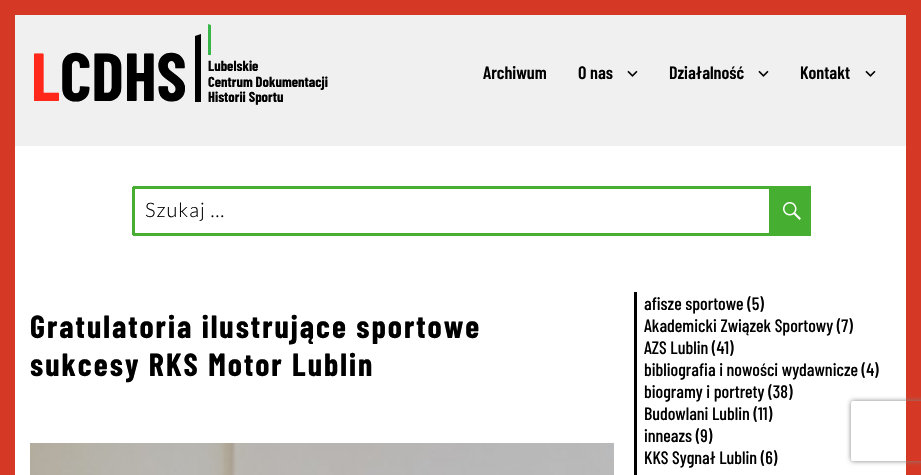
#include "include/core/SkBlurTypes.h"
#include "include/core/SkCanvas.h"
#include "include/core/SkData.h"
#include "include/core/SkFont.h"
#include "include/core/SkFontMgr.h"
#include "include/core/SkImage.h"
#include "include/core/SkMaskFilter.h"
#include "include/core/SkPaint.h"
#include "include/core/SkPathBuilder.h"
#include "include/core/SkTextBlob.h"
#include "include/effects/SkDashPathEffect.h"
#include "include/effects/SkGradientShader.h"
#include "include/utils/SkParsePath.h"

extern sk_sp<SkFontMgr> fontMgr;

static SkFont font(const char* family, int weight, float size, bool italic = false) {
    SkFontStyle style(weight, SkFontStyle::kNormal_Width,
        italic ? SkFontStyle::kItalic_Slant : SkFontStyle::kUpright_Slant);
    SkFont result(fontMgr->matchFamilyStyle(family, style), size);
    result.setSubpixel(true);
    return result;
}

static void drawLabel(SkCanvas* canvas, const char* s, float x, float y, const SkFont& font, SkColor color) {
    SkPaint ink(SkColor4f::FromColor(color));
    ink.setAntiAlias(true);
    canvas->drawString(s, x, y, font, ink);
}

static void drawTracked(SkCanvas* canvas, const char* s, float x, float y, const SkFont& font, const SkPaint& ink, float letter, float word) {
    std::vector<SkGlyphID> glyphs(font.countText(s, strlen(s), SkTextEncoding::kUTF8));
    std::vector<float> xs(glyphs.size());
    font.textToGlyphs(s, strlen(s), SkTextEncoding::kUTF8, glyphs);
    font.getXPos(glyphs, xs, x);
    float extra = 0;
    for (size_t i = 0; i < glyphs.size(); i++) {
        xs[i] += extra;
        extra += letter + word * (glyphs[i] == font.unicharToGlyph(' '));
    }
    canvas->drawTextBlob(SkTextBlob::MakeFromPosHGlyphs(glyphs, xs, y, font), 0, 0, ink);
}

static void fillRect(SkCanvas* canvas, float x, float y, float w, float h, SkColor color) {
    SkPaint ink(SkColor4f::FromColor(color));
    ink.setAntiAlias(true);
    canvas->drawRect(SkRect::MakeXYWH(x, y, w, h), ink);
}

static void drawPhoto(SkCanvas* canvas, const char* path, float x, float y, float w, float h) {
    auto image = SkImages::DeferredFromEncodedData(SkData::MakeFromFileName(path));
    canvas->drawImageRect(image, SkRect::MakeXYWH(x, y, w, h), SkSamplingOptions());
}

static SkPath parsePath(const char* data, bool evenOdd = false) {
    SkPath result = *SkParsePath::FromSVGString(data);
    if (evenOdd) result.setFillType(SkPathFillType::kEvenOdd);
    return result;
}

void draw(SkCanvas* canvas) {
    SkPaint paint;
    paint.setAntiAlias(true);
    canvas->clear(0xFFD53925);
    fillRect(canvas, 15, 146, 891, 329, 0xFFFFFFFF);
    fillRect(canvas, 15, 15, 891, 131, 0xFFF0F0F0);
    SkFont font1 = font("Barlow Condensed", 700, 68);
    drawLabel(canvas, "L", 31, 101, font1, 0xFFFF281B);
    drawLabel(canvas, "CDHS", 60, 101, font1, 0xFF000000);
    SkFont font2 = font("Barlow Condensed", 700, 14.5f);
    drawLabel(canvas, "Lubelskie", 208, 71, font2, 0xFF000000);
    paint.setColor(0xFF39B54A);
    canvas->drawPath(parsePath("M211 25V55H208V24Z"), paint);
    paint.setColor(0xFF000000);
    canvas->drawPath(parsePath("M201 102H195V36L201 34Z"), paint);
    drawLabel(canvas, "Centrum Dokumentacji", 208, 87, font2, 0xFF000000);
    drawLabel(canvas, "Historii Sportu", 208, 102, font2, 0xFF000000);
    SkFont font3 = font("Barlow Condensed", 600, 18);
    drawLabel(canvas, "Archiwum", 483, 79, font3, 0xFF000000);
    drawLabel(canvas, "O nas", 578, 79, font3, 0xFF000000);
    drawPhoto(canvas, "assets/img1.png", 627, 70, 11, 7);
    drawLabel(canvas, "Działalność", 669, 79, font3, 0xFF000000);
    drawPhoto(canvas, "assets/img1.png", 758, 70, 11, 7);
    drawLabel(canvas, "Kontakt", 800, 79, font3, 0xFF000000);
    drawPhoto(canvas, "assets/img1.png", 865, 70, 11, 7);
    fillRect(canvas, 133, 186, 636, 3, 0xFF46AE30);
    fillRect(canvas, 133, 233, 636, 3, 0xFF46AE30);
    fillRect(canvas, 132, 187, 3, 48, 0xFF46AE30);
    SkFont font4 = font("Lato", 300, 20);
    drawTracked(canvas, "Szukaj …", 145, 217, font4, paint, 1, 0);
    fillRect(canvas, 769, 186, 42, 50, 0xFF46AE30);
    drawPhoto(canvas, "assets/img2.png", 783, 202, 18, 18);
    SkFont font5 = font("Barlow Condensed", 700, 32);
    drawTracked(canvas, "Gratulatoria ilustrujące sportowe", 30, 338, font5, paint, 2, 0);
    drawTracked(canvas, "sukcesy RKS Motor Lublin", 30, 376, font5, paint, 2, 0);
    drawPhoto(canvas, "assets/img3.png", 30, 443, 584, 32);
    fillRect(canvas, 634, 292, 3, 183, 0xFF000000);
    SkFont font6 = font("Barlow Condensed", 500, 18);
    drawLabel(canvas, "afisze sportowe (5)", 644, 310, font6, 0xFF000000);
    drawLabel(canvas, "Akademicki Związek Sportowy (7)", 644, 332, font6, 0xFF000000);
    drawLabel(canvas, "AZS Lublin (41)", 644, 354, font6, 0xFF000000);
    drawLabel(canvas, "bibliografia i nowości wydawnicze (4)", 644, 376, font6, 0xFF000000);
    drawLabel(canvas, "biogramy i portrety (38)", 644, 398, font6, 0xFF000000);
    drawLabel(canvas, "Budowlani Lublin (11)", 644, 420, font6, 0xFF000000);
    drawLabel(canvas, "inneazs (9)", 644, 442, font6, 0xFF000000);
    drawLabel(canvas, "KKS Sygnał Lublin (6)", 644, 464, font6, 0xFF000000);
    canvas->save();
    canvas->clipPath(parsePath("M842 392H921V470H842ZM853 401H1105C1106 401 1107 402 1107 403V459C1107 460 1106 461 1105 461H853C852 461 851 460 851 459V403C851 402 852 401 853 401Z", true), true);
    paint.setColor(0xFF808080);
    paint.setMaskFilter(SkMaskFilter::MakeBlur(kNormal_SkBlurStyle, 2.5f));
    canvas->drawRoundRect(SkRect::MakeXYWH(851, 401, 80, 60), 2, 2, paint);
    paint.setMaskFilter(nullptr);
    canvas->restore();
}
